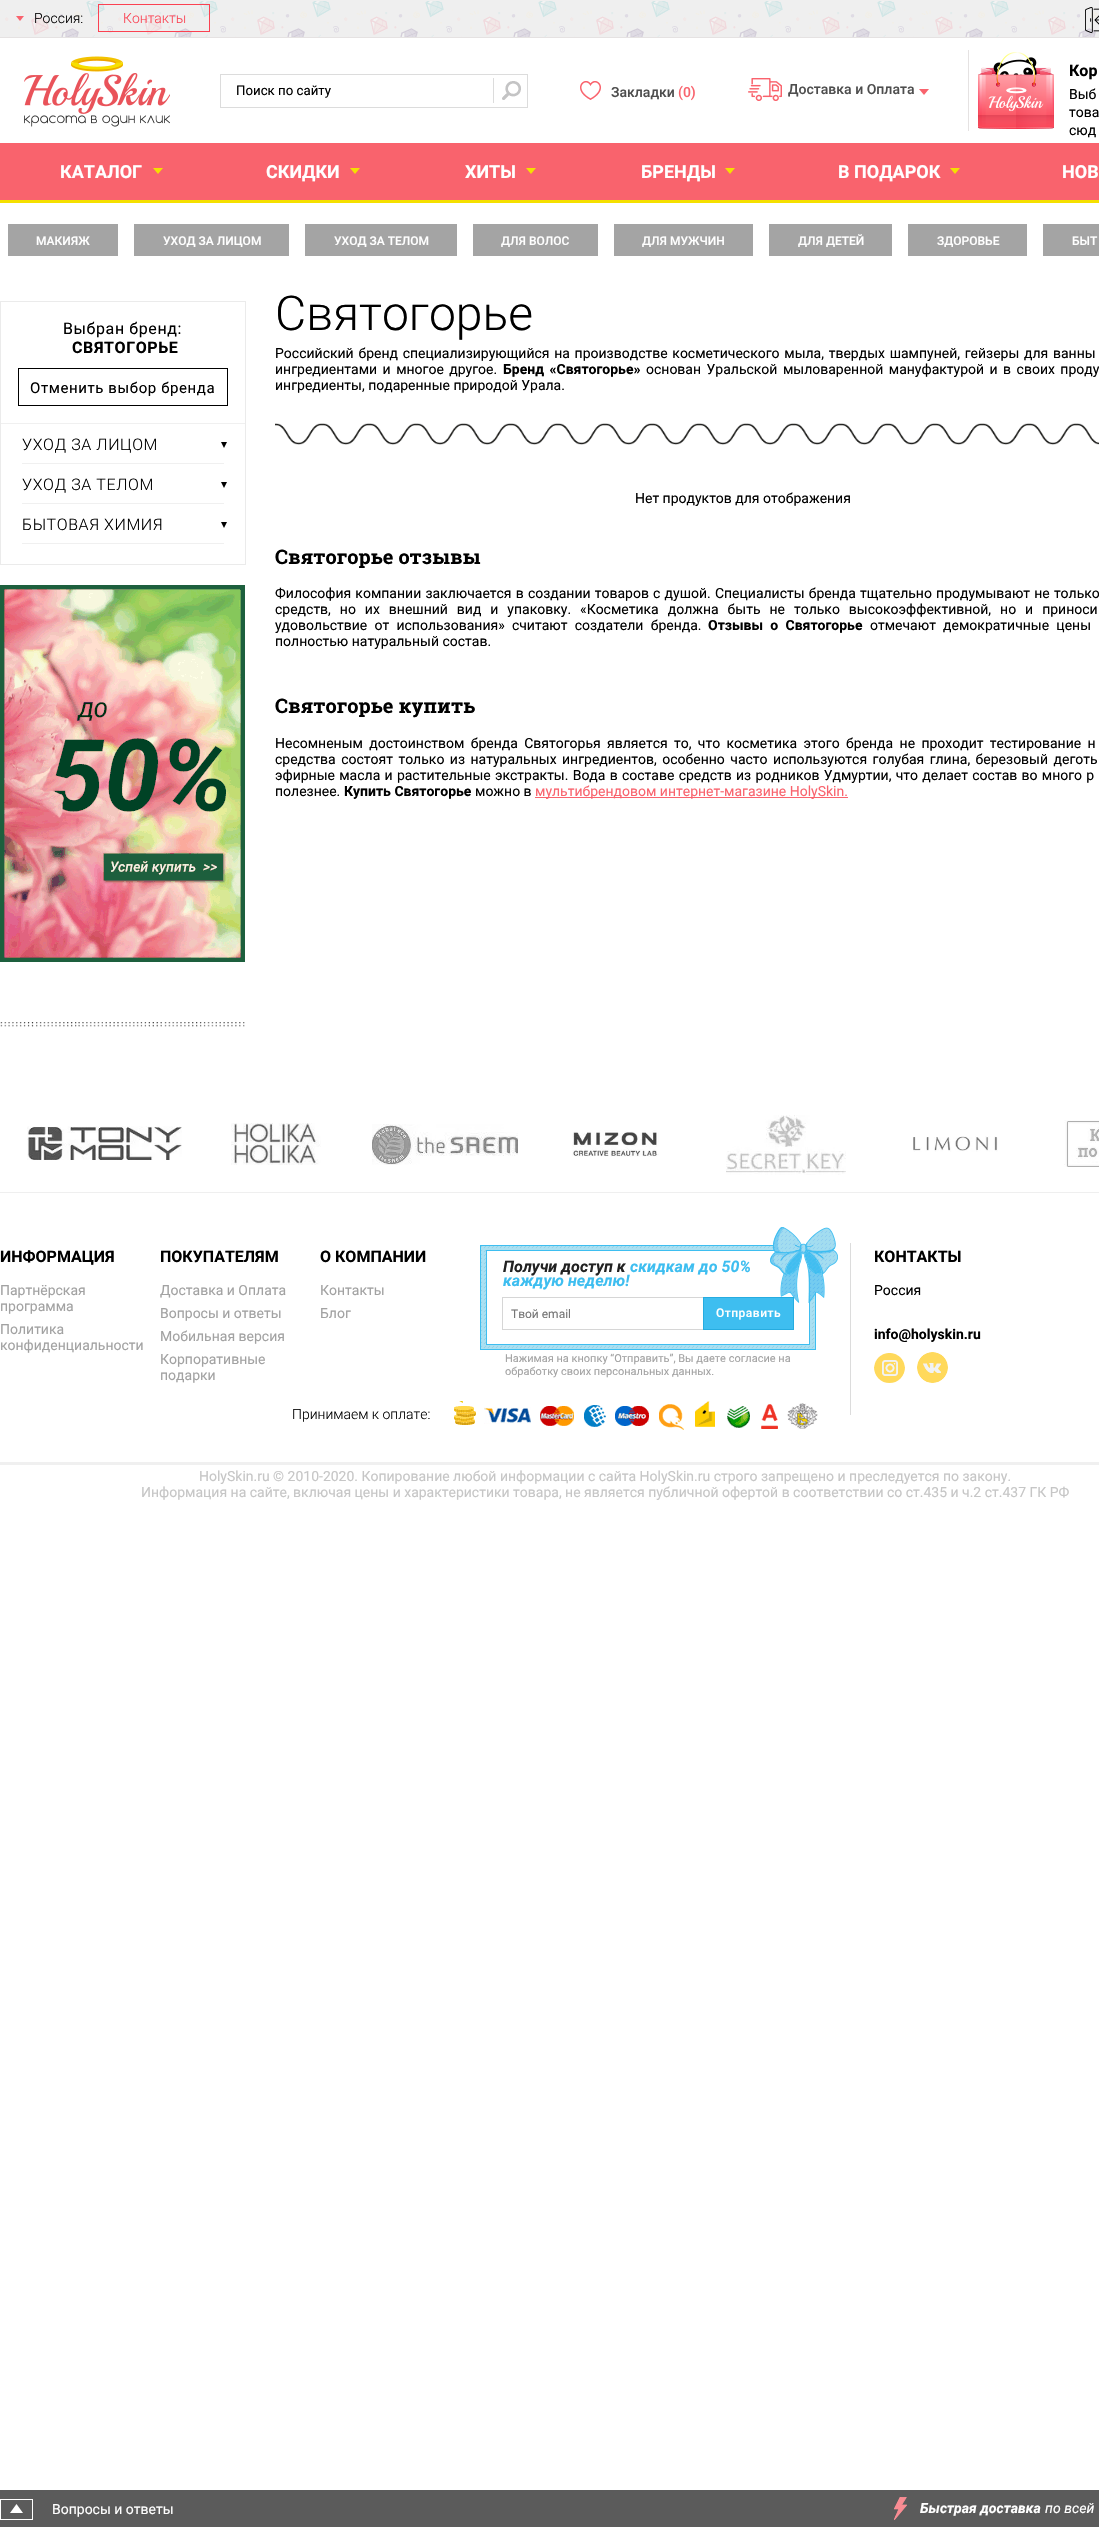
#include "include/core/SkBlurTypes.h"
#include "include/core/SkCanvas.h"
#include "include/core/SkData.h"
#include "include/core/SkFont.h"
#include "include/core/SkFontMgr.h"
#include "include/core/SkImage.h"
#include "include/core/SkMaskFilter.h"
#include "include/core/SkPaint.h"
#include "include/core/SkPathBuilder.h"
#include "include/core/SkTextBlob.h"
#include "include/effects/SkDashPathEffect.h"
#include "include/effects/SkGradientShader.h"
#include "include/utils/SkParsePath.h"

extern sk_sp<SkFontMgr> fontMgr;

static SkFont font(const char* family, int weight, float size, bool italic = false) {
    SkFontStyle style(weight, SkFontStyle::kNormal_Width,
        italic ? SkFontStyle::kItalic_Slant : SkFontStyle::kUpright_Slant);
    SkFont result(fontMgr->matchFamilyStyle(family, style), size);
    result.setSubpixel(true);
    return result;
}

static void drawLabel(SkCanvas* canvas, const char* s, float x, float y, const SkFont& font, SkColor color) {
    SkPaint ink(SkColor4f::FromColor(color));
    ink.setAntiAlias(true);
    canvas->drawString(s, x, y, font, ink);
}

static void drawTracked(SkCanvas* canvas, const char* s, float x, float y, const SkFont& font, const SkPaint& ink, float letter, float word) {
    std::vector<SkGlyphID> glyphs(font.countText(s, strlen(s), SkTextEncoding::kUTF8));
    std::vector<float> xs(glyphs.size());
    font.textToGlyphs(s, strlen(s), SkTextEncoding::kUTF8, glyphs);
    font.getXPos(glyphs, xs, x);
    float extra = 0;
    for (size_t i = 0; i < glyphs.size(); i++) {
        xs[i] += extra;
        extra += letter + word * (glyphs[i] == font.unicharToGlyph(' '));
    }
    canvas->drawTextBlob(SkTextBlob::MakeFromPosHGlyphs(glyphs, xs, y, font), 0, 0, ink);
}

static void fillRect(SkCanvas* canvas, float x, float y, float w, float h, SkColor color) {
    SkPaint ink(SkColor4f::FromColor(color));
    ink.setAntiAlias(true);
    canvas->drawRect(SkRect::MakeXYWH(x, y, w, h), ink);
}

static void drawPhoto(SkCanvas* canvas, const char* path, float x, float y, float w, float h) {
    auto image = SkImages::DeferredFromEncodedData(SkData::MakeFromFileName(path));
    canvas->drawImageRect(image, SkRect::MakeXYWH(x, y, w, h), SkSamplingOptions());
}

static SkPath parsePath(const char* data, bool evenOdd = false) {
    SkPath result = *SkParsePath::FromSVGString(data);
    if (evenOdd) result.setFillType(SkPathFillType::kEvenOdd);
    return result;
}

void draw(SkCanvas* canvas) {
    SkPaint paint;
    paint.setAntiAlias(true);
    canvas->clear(0xFFFFFFFF);
    drawPhoto(canvas, "assets/img1.png", 0, 0, 1099, 37);
    fillRect(canvas, 0, 37, 1099, 1, 0xFFE5E2E2);
    paint.setColor(0xFFF9636D);
    canvas->drawPath(parsePath("M16 16H24L20 21Z"), paint);
    SkFont font1 = font("Roboto", 300, 14);
    drawLabel(canvas, "Россия:", 34, 23, font1, 0xFF000000);
    paint.setStroke(true);
    paint.setStrokeWidth(1);
    paint.setColor(0xFFFB4252);
    canvas->drawRect(SkRect::MakeXYWH(98.5f, 4.5f, 111, 27), paint);
    drawLabel(canvas, "Контакты", 123, 23, font1, 0xFFFB4252);
    drawPhoto(canvas, "assets/img2.png", 1085, 7, 14, 26);
    drawPhoto(canvas, "assets/img3.png", 71, 56, 52, 16);
    drawPhoto(canvas, "assets/img4.png", 24, 73, 146, 41);
    drawPhoto(canvas, "assets/img5.png", 24, 115, 146, 12);
    paint.setColor(0xFFDCDCDC);
    canvas->drawRect(SkRect::MakeXYWH(220.5f, 74.5f, 307, 33), paint);
    SkFont font2 = font("Roboto", 400, 13.25f);
    drawLabel(canvas, "Поиск по сайту", 236, 95, font2, 0xFF000000);
    fillRect(canvas, 493, 78, 1, 25, 0xFFDCDCDC);
    drawPhoto(canvas, "assets/img6.png", 502, 81, 19, 19);
    drawPhoto(canvas, "assets/img7.png", 580, 81, 21, 19);
    SkFont font3 = font("Roboto", 500, 14);
    drawLabel(canvas, "Закладки", 611, 97, font3, 0xFF4E4E4E);
    drawLabel(canvas, "(0)", 678, 97, font3, 0xFFF9636D);
    drawPhoto(canvas, "assets/img8.png", 748, 78, 34, 23);
    drawLabel(canvas, "Доставка и Оплата", 788, 94, font3, 0xFF4E4E4E);
    paint.setStroke(false);
    paint.setColor(0xFFF9636D);
    canvas->drawPath(parsePath("M919 89H929L924 95Z"), paint);
    fillRect(canvas, 968, 50, 1, 81, 0xFFE5E2E2);
    drawPhoto(canvas, "assets/img9.png", 978, 52, 76, 77);
    SkFont font4 = font("Roboto", 700, 16);
    drawLabel(canvas, "Кор", 1069, 76, font4, 0xFF000000);
    SkFont font5 = font("Roboto", 400, 14);
    drawLabel(canvas, "Выб", 1069, 99, font5, 0xFF000000);
    drawLabel(canvas, "това", 1069, 117, font5, 0xFF000000);
    drawLabel(canvas, "сюд", 1069, 135, font5, 0xFF000000);
    fillRect(canvas, 0, 143, 1099, 57, 0xFFF9636D);
    fillRect(canvas, 0, 200, 1099, 3, 0xFFF5E000);
    SkFont font6 = font("Roboto", 700, 18);
    drawLabel(canvas, "КАТАЛОГ", 60, 178, font6, 0xFFFFFFFF);
    paint.setColor(0xFFF5E000);
    canvas->drawPath(parsePath("M153 168H163L158 174Z"), paint);
    drawLabel(canvas, "СКИДКИ", 266, 178, font6, 0xFFFFFFFF);
    canvas->drawPath(parsePath("M350 168H360L355 174Z"), paint);
    drawLabel(canvas, "ХИТЫ", 465, 178, font6, 0xFFFFFFFF);
    canvas->drawPath(parsePath("M526 168H536L531 174Z"), paint);
    drawLabel(canvas, "БРЕНДЫ", 641, 178, font6, 0xFFFFFFFF);
    canvas->drawPath(parsePath("M725 168H735L730 174Z"), paint);
    drawLabel(canvas, "В ПОДАРОК", 838, 178, font6, 0xFFFFFFFF);
    canvas->drawPath(parsePath("M950 168H960L955 174Z"), paint);
    drawLabel(canvas, "НОВ", 1062, 178, font6, 0xFFFFFFFF);
    fillRect(canvas, 8, 224, 110, 32, 0xFFA4A4A4);
    SkFont font7 = font("Roboto", 500, 12);
    drawLabel(canvas, "МАКИЯЖ", 36, 245, font7, 0xFFFFFFFF);
    fillRect(canvas, 134, 224, 155, 32, 0xFFA4A4A4);
    drawLabel(canvas, "УХОД ЗА ЛИЦОМ", 163, 245, font7, 0xFFFFFFFF);
    fillRect(canvas, 305, 224, 152, 32, 0xFFA4A4A4);
    drawLabel(canvas, "УХОД ЗА ТЕЛОМ", 334, 245, font7, 0xFFFFFFFF);
    fillRect(canvas, 473, 224, 125, 32, 0xFFA4A4A4);
    drawLabel(canvas, "ДЛЯ ВОЛОС", 501, 245, font7, 0xFFFFFFFF);
    fillRect(canvas, 614, 224, 139, 32, 0xFFA4A4A4);
    drawLabel(canvas, "ДЛЯ МУЖЧИН", 642, 245, font7, 0xFFFFFFFF);
    fillRect(canvas, 769, 224, 123, 32, 0xFFA4A4A4);
    drawLabel(canvas, "ДЛЯ ДЕТЕЙ", 798, 245, font7, 0xFFFFFFFF);
    fillRect(canvas, 908, 224, 119, 32, 0xFFA4A4A4);
    drawLabel(canvas, "ЗДОРОВЬЕ", 937, 245, font7, 0xFFFFFFFF);
    fillRect(canvas, 1043, 224, 56, 32, 0xFFA4A4A4);
    drawLabel(canvas, "БЫТ", 1072, 245, font7, 0xFFFFFFFF);
    paint.setStroke(true);
    paint.setColor(0xFFEBEBEB);
    canvas->drawRect(SkRect::MakeXYWH(0.5f, 301.5f, 245, 263), paint);
    fillRect(canvas, 1, 423, 244, 1, 0xFFF0F0F0);
    SkFont font8 = font("Roboto", 400, 16);
    paint.setStroke(false);
    paint.setColor(0xFF000000);
    drawTracked(canvas, "Выбран бренд:", 63, 334, font8, paint, 0.6f, 0);
    drawTracked(canvas, "CВЯТОГОРЬЕ", 72, 353, font4, paint, 0.6f, 0);
    paint.setStroke(true);
    canvas->drawRect(SkRect::MakeXYWH(18.5f, 368.5f, 209, 37), paint);
    SkFont font9 = font("Roboto", 400, 15);
    paint.setStroke(false);
    drawTracked(canvas, "Отменить выбор бренда", 30, 393, font9, paint, 0.6f, 0);
    fillRect(canvas, 22, 463, 202, 1, 0xFFF0F0F0);
    SkFont font10 = font("Roboto", 300, 16);
    drawTracked(canvas, "УХОД ЗА ЛИЦОМ", 22, 450, font10, paint, 0.6f, 0);
    canvas->drawPath(parsePath("M221 442H227L224 448Z"), paint);
    fillRect(canvas, 22, 503, 202, 1, 0xFFF0F0F0);
    drawTracked(canvas, "УХОД ЗА ТЕЛОМ", 22, 490, font10, paint, 0.6f, 0);
    canvas->drawPath(parsePath("M221 482H227L224 488Z"), paint);
    fillRect(canvas, 22, 543, 202, 1, 0xFFF0F0F0);
    drawTracked(canvas, "БЫТОВАЯ ХИМИЯ", 22, 530, font10, paint, 0.6f, 0);
    canvas->drawPath(parsePath("M221 522H227L224 528Z"), paint);
    drawPhoto(canvas, "assets/img10.png", 0, 585, 245, 377);
    drawPhoto(canvas, "assets/img11.png", 0, 1022, 245, 5);
    SkFont font11 = font("Roboto", 300, 48);
    drawLabel(canvas, "Святогорье", 275, 330, font11, 0xFF000000);
    drawTracked(canvas, "Российский бренд специализирующийся на производстве косметического мыла, твердых шампуней, гейзеры для ванны", 275, 358, font5, paint, 0, 1.25f);
    drawTracked(canvas, "ингредиентами и многое другое.", 275, 374, font5, paint, 0, 2);
    SkFont font12 = font("Roboto", 700, 14);
    drawTracked(canvas, "Бренд «Святогорье»", 503, 374, font12, paint, 0, 2);
    drawTracked(canvas, "основан Уральской мыловаренной мануфактурой и в своих проду", 646, 374, font5, paint, 0, 2);
    drawLabel(canvas, "ингредиенты, подаренные природой Урала.", 275, 390, font5, 0xFF000000);
    drawPhoto(canvas, "assets/img12.png", 275, 423, 824, 22);
    drawLabel(canvas, "Нет продуктов для отображения", 635, 503, font5, 0xFF000000);
    SkFont font13 = font("Roboto Slab", 700, 20);
    drawLabel(canvas, "Святогорье отзывы", 275, 564, font13, 0xFF000000);
    drawTracked(canvas, "Философия компании заключается в создании товаров с душой. Специалисты бренда тщательно продумывают не только", 275, 598, font5, paint, 0, 0.7f);
    drawTracked(canvas, "средств, но их внешний вид и упаковку. «Косметика должна быть не только высокоэффективной, но и приноси", 275, 614, font5, paint, 0, 5.5f);
    drawTracked(canvas, "удовольствие от использования» считают создатели бренда.", 275, 630, font5, paint, 0, 3.75f);
    drawTracked(canvas, "Отзывы о Святогорье", 708, 630, font12, paint, 0, 3.75f);
    drawTracked(canvas, "отмечают демократичные цены", 870, 630, font5, paint, 0, 3.75f);
    drawLabel(canvas, "полностью натуральный состав.", 275, 646, font5, 0xFF000000);
    drawLabel(canvas, "Святогорье купить", 275, 713, font13, 0xFF000000);
    drawTracked(canvas, "Несомненым достоинством бренда Святогорья является то, что косметика этого бренда не проходит тестирование н", 275, 748, font5, paint, 0, 2.9f);
    drawTracked(canvas, "средства состоят только из натуральных ингредиентов, особенно часто используются голубая глина, березовый деготь", 275, 764, font5, paint, 0, 2);
    drawTracked(canvas, "эфирные масла и растительные экстракты. Вода в составе средств из родников Удмуртии, что делает состав во много р", 275, 780, font5, paint, 0, 0.8f);
    drawLabel(canvas, "полезнее.", 275, 796, font5, 0xFF000000);
    drawLabel(canvas, "Купить Святогорье", 344, 796, font12, 0xFF000000);
    drawLabel(canvas, "можно в", 475, 796, font5, 0xFF000000);
    fillRect(canvas, 535, 797, 313, 1, 0xFFF9636D);
    drawLabel(canvas, "мультибрендовом интернет-магазине HolySkin.", 535, 796, font5, 0xFFF9636D);
    drawPhoto(canvas, "assets/img13.png", 27, 1126, 155, 34);
    drawPhoto(canvas, "assets/img14.png", 231, 1123, 90, 42);
    drawPhoto(canvas, "assets/img15.png", 372, 1124, 146, 41);
    drawPhoto(canvas, "assets/img16.png", 572, 1130, 87, 27);
    drawPhoto(canvas, "assets/img17.png", 726, 1115, 120, 60);
    drawPhoto(canvas, "assets/img18.png", 913, 1136, 85, 16);
    drawPhoto(canvas, "assets/img19.png", 1064, 1120, 35, 47);
    fillRect(canvas, 0, 1192, 1099, 1, 0xFFEFEFEF);
    fillRect(canvas, 0, 1462, 1099, 3, 0xFFF0F0F0);
    drawLabel(canvas, "ИНФОРМАЦИЯ", 0, 1262, font4, 0xFF000000);
    drawLabel(canvas, "Партнёрская", 0, 1295, font5, 0xFFA2A2A2);
    drawLabel(canvas, "программа", 0, 1311, font5, 0xFFA2A2A2);
    drawLabel(canvas, "Политика", 0, 1334, font5, 0xFFA2A2A2);
    drawLabel(canvas, "конфиденциальности", 0, 1350, font5, 0xFFA2A2A2);
    drawLabel(canvas, "ПОКУПАТЕЛЯМ", 160, 1262, font4, 0xFF000000);
    drawLabel(canvas, "Доставка и Оплата", 160, 1295, font5, 0xFFA2A2A2);
    drawLabel(canvas, "Вопросы и ответы", 160, 1318, font5, 0xFFA2A2A2);
    drawLabel(canvas, "Мобильная версия", 160, 1341, font5, 0xFFA2A2A2);
    drawLabel(canvas, "Корпоративные", 160, 1364, font5, 0xFFA2A2A2);
    drawLabel(canvas, "подарки", 160, 1380, font5, 0xFFA2A2A2);
    drawLabel(canvas, "О КОМПАНИИ", 320, 1262, font4, 0xFF000000);
    drawLabel(canvas, "Контакты", 320, 1295, font5, 0xFFA2A2A2);
    drawLabel(canvas, "Блог", 320, 1318, font5, 0xFFA2A2A2);
    drawPhoto(canvas, "assets/img20.png", 480, 1227, 358, 123);
    SkFont font14 = font("Roboto", 700, 16, true);
    drawLabel(canvas, "Получи доступ к", 503, 1272, font14, 0xFF222222);
    drawLabel(canvas, "скидкам до 50%", 630, 1272, font14, 0xFF3EBEF0);
    drawLabel(canvas, "каждую неделю!", 503, 1286, font14, 0xFF3EBEF0);
    fillRect(canvas, 502, 1297, 201, 1, 0xFFD6D6D6);
    fillRect(canvas, 502, 1329, 201, 1, 0xFFD6D6D6);
    fillRect(canvas, 502, 1297, 1, 33, 0xFFD6D6D6);
    SkFont font15 = font("Roboto", 400, 12);
    drawLabel(canvas, "Твой email", 511, 1318, font15, 0xFF757575);
    paint.setColor(0xFF3EBEF0);
    canvas->drawRect(SkRect::MakeXYWH(703.5f, 1297.5f, 90, 32), paint);
    paint.setStroke(true);
    paint.setColor(0xFF26ACE0);
    canvas->drawRect(SkRect::MakeXYWH(703.5f, 1297.5f, 90, 32), paint);
    paint.setStroke(false);
    paint.setColor(0xFFFFFFFF);
    drawTracked(canvas, "Отправить", 716, 1317, font7, paint, 0.5f, 0);
    SkFont font16 = font("Roboto", 400, 11);
    drawLabel(canvas, "Нажимая на кнопку “Отправить”, Вы даете согласие на", 505, 1362, font16, 0xFFA2A2A2);
    drawLabel(canvas, "обработку своих персональных данных.", 505, 1375, font16, 0xFFA2A2A2);
    drawLabel(canvas, "Принимаем к оплате:", 292, 1419, font1, 0xFF000000);
    drawPhoto(canvas, "assets/img21.png", 454, 1401, 364, 29);
    fillRect(canvas, 850, 1243, 1, 172, 0xFFDCDCDC);
    drawLabel(canvas, "КОНТАКТЫ", 874, 1262, font4, 0xFF000000);
    drawLabel(canvas, "Россия", 874, 1295, font5, 0xFF000000);
    drawLabel(canvas, "info@holyskin.ru", 874, 1339, font12, 0xFF000000);
    drawPhoto(canvas, "assets/img22.png", 874, 1353, 31, 30);
    drawPhoto(canvas, "assets/img23.png", 917, 1352, 31, 31);
    drawLabel(canvas, "HolySkin.ru © 2010-2020. Копирование любой информации с сайта HolySkin.ru строго запрещено и преследуется по закону.", 199, 1481, font5, 0xFFC6C6C6);
    drawLabel(canvas, "Информация на сайте, включая цены и характеристики товара, не является публичной офертой в соответствии со ст.435 и ч.2 ст.437 ГК РФ", 141, 1497, font5, 0xFFC6C6C6);
    fillRect(canvas, 0, 2490, 1099, 37, 0xFF5B5B5B);
    drawPhoto(canvas, "assets/img24.png", 0, 2499, 33, 21);
    drawLabel(canvas, "Вопросы и ответы", 52, 2514, font5, 0xFFFFFFFF);
    drawPhoto(canvas, "assets/img25.png", 894, 2497, 13, 23);
    SkFont font17 = font("Roboto", 700, 14, true);
    drawLabel(canvas, "Быстрая доставка", 920, 2513, font17, 0xFFFFFFFF);
    SkFont font18 = font("Roboto", 400, 14, true);
    drawLabel(canvas, "по всей", 1045, 2513, font18, 0xFFFFFFFF);
}
